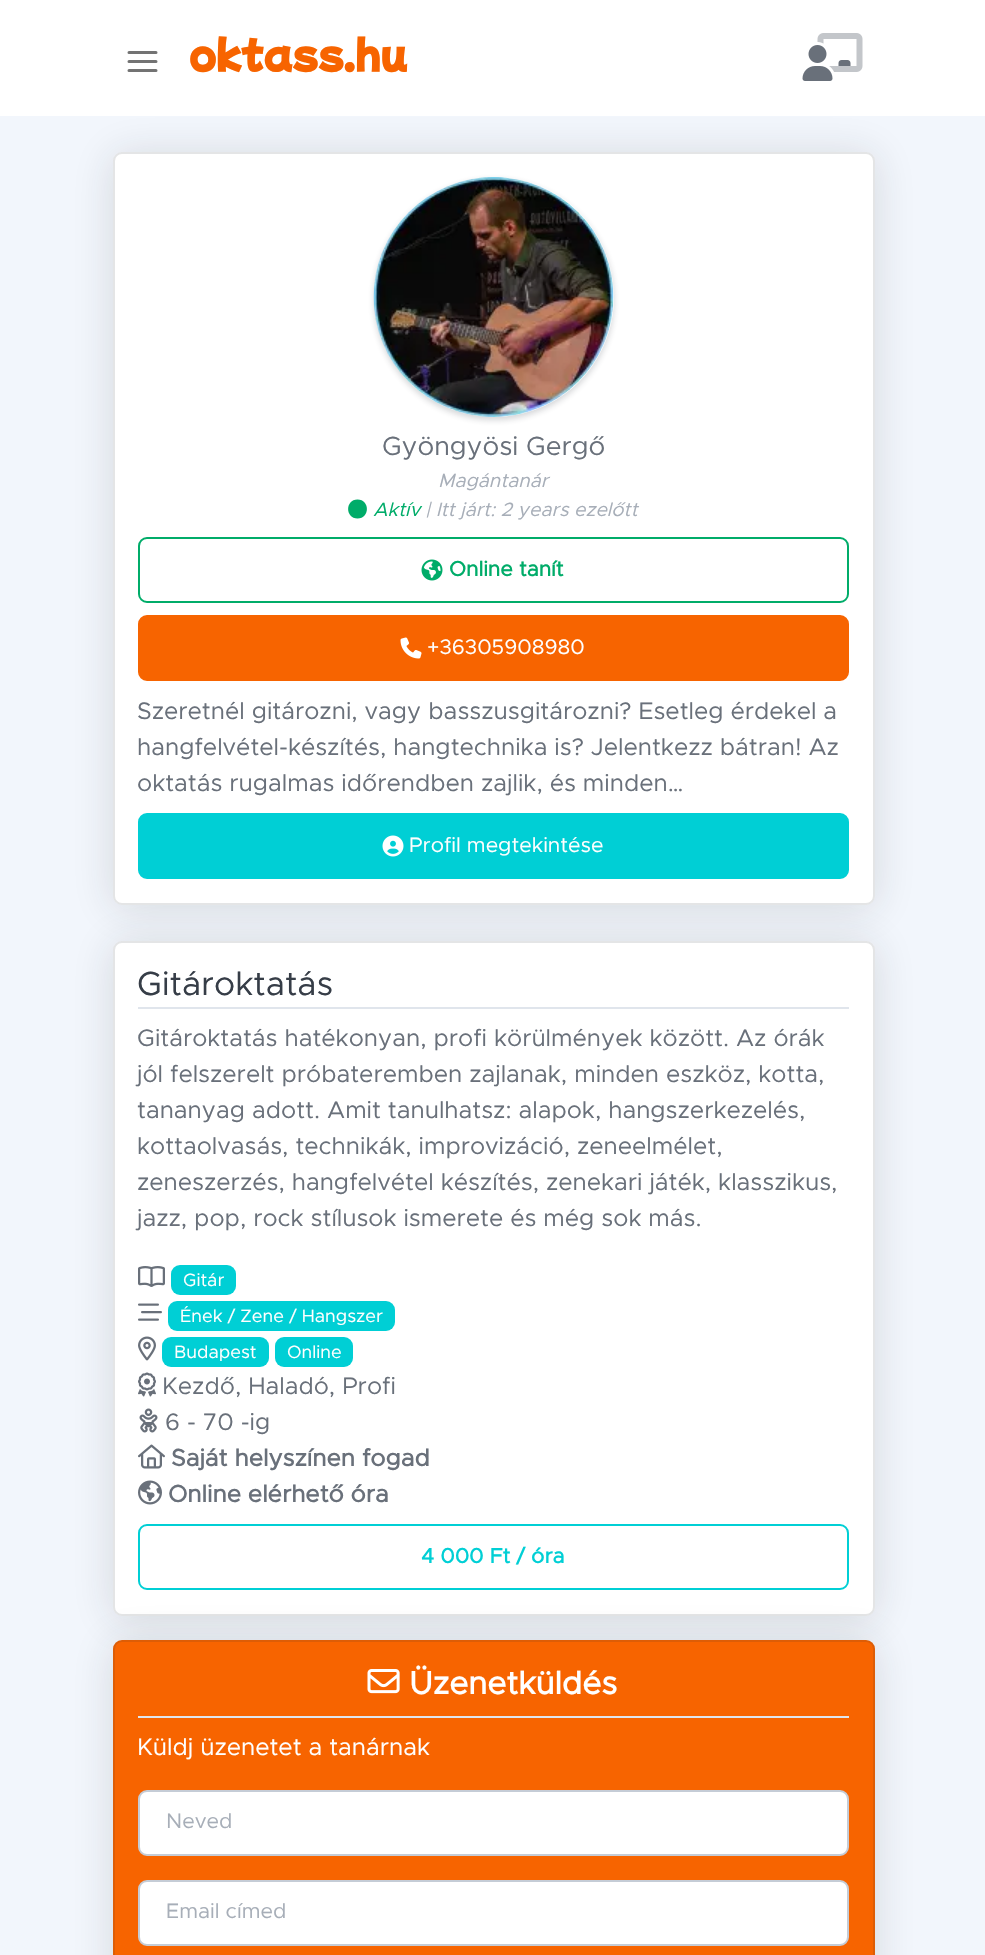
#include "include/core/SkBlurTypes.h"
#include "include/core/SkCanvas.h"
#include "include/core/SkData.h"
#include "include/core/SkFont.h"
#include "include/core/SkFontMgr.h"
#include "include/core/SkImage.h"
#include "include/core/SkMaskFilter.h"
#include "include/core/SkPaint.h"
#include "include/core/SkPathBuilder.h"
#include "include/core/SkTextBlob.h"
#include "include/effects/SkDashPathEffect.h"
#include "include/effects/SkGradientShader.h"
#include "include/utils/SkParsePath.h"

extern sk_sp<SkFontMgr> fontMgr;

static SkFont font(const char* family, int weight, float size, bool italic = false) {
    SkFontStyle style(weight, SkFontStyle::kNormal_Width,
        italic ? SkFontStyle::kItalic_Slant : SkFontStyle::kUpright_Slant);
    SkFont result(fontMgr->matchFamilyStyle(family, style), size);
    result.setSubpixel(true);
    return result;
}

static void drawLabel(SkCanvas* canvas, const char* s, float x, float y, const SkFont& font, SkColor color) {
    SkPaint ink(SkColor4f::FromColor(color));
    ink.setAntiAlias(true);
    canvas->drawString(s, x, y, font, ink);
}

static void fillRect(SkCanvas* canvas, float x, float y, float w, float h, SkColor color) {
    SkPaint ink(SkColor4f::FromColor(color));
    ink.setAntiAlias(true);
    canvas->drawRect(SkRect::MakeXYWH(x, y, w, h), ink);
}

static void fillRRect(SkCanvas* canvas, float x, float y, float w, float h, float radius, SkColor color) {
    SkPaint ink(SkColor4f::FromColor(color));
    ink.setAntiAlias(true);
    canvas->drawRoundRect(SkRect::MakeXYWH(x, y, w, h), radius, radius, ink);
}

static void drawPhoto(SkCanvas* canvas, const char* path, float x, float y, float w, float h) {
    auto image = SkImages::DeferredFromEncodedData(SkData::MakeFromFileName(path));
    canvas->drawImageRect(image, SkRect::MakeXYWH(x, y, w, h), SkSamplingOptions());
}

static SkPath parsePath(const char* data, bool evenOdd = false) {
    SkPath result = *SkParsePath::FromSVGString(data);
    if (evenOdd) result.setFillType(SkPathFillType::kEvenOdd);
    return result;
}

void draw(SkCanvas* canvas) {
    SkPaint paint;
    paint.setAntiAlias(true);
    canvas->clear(0xFFF2F6FC);
    fillRect(canvas, 0, 0, 985, 116, 0xFFFFFFFF);
    paint.setStroke(true);
    paint.setStrokeWidth(3);
    paint.setStrokeCap(SkPaint::kRound_Cap);
    paint.setStrokeJoin(SkPaint::kRound_Join);
    paint.setColor(0xFF737373);
    canvas->drawPath(parsePath("M129 61.5H156M129 52.5H156M129 70.5H156"), paint);
    SkFont font1 = font("Mochiy Pop P One", 700, 39);
    drawLabel(canvas, "oktass.hu", 189, 69, font1, 0xFFF76400);
    drawPhoto(canvas, "assets/img1.png", 802, 33, 61, 48);
    paint.setStroke(false);
    paint.setColor(0x26212832);
    paint.setMaskFilter(SkMaskFilter::MakeBlur(kNormal_SkBlurStyle, 21));
    canvas->drawRoundRect(SkRect::MakeXYWH(113, 155, 762, 753), 9, 9, paint);
    paint.setMaskFilter(nullptr);
    fillRRect(canvas, 113, 152, 762, 753, 9, 0xFFFFFFFF);
    paint.setStroke(true);
    paint.setStrokeWidth(2);
    paint.setStrokeCap(SkPaint::kButt_Cap);
    paint.setStrokeJoin(SkPaint::kMiter_Join);
    paint.setColor(0x1F212832);
    canvas->drawRoundRect(SkRect::MakeXYWH(114, 153, 760, 751), 8, 8, paint);
    canvas->save();
    canvas->clipPath(parsePath("M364 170H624V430H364ZM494 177C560.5 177 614 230.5 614 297C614 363.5 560.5 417 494 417C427.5 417 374 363.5 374 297C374 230.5 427.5 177 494 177Z", true), true);
    paint.setStroke(false);
    paint.setColor(0x33212832);
    paint.setMaskFilter(SkMaskFilter::MakeBlur(kNormal_SkBlurStyle, 3));
    canvas->drawRoundRect(SkRect::MakeXYWH(374, 180, 240, 240), 120, 120, paint);
    paint.setMaskFilter(nullptr);
    canvas->restore();
    drawPhoto(canvas, "assets/img2.png", 373, 177, 241, 240);
    SkFont font2 = font("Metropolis", 400, 26.5f);
    drawLabel(canvas, "Gyöngyösi Gergő", 382, 455, font2, 0xFF69707A);
    SkFont font3 = font("Metropolis", 400, 19.25f, true);
    drawLabel(canvas, "Magántanár", 438, 487, font3, 0xFFA7AEB8);
    paint.setColor(0xFF00AC69);
    canvas->drawPath(parsePath("M357.5 518.5C370 518.5 370 499.5 357.5 499.5C345 499.5 345 518.5 357.5 518.5Z"), paint);
    drawLabel(canvas, "Aktív", 373, 516, font3, 0xFF00AC69);
    drawLabel(canvas, "| Itt járt: 2 years ezelőtt", 425, 516, font3, 0xFFA7AEB8);
    paint.setStroke(true);
    canvas->drawRoundRect(SkRect::MakeXYWH(139, 538, 709, 64), 8, 8, paint);
    drawPhoto(canvas, "assets/img3.png", 421, 559, 22, 22);
    SkFont font4 = font("Metropolis", 700, 21);
    drawLabel(canvas, "Online tanít", 449, 576, font4, 0xFF00AC69);
    paint.setStroke(false);
    paint.setColor(0xFFF76400);
    canvas->drawRoundRect(SkRect::MakeXYWH(139, 616, 709, 64), 8, 8, paint);
    paint.setStroke(true);
    canvas->drawRoundRect(SkRect::MakeXYWH(139, 616, 709, 64), 8, 8, paint);
    drawPhoto(canvas, "assets/img4.png", 400, 637, 22, 22);
    SkFont font5 = font("Metropolis", 400, 21);
    drawLabel(canvas, "+36305908980", 427, 654, font5, 0xFFFFFFFF);
    SkFont font6 = font("Metropolis", 400, 24);
    drawLabel(canvas, "Szeretnél gitározni, vagy basszusgitározni? Esetleg érdekel a", 137, 719, font6, 0xFF69707A);
    drawLabel(canvas, "hangfelvétel-készítés, hangtechnika is? Jelentkezz bátran! Az", 137, 755, font6, 0xFF69707A);
    drawLabel(canvas, "oktatás rugalmas időrendben zajlik, és minden…", 137, 791, font6, 0xFF69707A);
    paint.setStroke(false);
    paint.setColor(0xFF00CFD5);
    canvas->drawRoundRect(SkRect::MakeXYWH(139, 814, 709, 64), 8, 8, paint);
    paint.setStroke(true);
    canvas->drawRoundRect(SkRect::MakeXYWH(139, 814, 709, 64), 8, 8, paint);
    drawPhoto(canvas, "assets/img5.png", 382, 835, 22, 22);
    drawLabel(canvas, "Profil megtekintése", 409, 852, font5, 0xFFFFFFFF);
    paint.setStroke(false);
    paint.setColor(0x26212832);
    paint.setMaskFilter(SkMaskFilter::MakeBlur(kNormal_SkBlurStyle, 21));
    canvas->drawRoundRect(SkRect::MakeXYWH(113, 944, 762, 675), 9, 9, paint);
    paint.setMaskFilter(nullptr);
    fillRRect(canvas, 113, 941, 762, 675, 9, 0xFFFFFFFF);
    paint.setStroke(true);
    paint.setColor(0x1F212832);
    canvas->drawRoundRect(SkRect::MakeXYWH(114, 942, 760, 673), 8, 8, paint);
    fillRect(canvas, 138, 1007, 711, 2, 0xFFE0E5EC);
    SkFont font7 = font("Metropolis", 400, 33.5f);
    drawLabel(canvas, "Gitároktatás", 137, 995, font7, 0xFF363D47);
    drawLabel(canvas, "Gitároktatás hatékonyan, profi körülmények között. Az órák", 137, 1046, font6, 0xFF69707A);
    drawLabel(canvas, "jól felszerelt próbateremben zajlanak, minden eszköz, kotta,", 137, 1082, font6, 0xFF69707A);
    drawLabel(canvas, "tananyag adott. Amit tanulhatsz: alapok, hangszerkezelés,", 137, 1118, font6, 0xFF69707A);
    drawLabel(canvas, "kottaolvasás, technikák, improvizáció, zeneelmélet,", 137, 1154, font6, 0xFF69707A);
    drawLabel(canvas, "zeneszerzés, hangfelvétel készítés, zenekari játék, klasszikus,", 137, 1190, font6, 0xFF69707A);
    drawLabel(canvas, "jazz, pop, rock stílusok ismerete és még sok más.", 137, 1226, font6, 0xFF69707A);
    drawPhoto(canvas, "assets/img6.png", 138, 1266, 27, 21);
    fillRRect(canvas, 171, 1265, 65, 30, 9, 0xFF00CFD5);
    SkFont font8 = font("Metropolis", 400, 18);
    drawLabel(canvas, "Gitár", 183, 1286, font8, 0xFFFFFFFF);
    drawPhoto(canvas, "assets/img7.png", 138, 1303, 24, 18);
    fillRRect(canvas, 168, 1301, 227, 30, 9, 0xFF00CFD5);
    drawLabel(canvas, "Ének / Zene / Hangszer", 180, 1322, font8, 0xFFFFFFFF);
    drawPhoto(canvas, "assets/img8.png", 138, 1336, 18, 25);
    fillRRect(canvas, 162, 1337, 107, 30, 9, 0xFF00CFD5);
    drawLabel(canvas, "Budapest", 174, 1358, font8, 0xFFFFFFFF);
    fillRRect(canvas, 275, 1337, 78, 30, 9, 0xFF00CFD5);
    drawLabel(canvas, "Online", 287, 1358, font8, 0xFFFFFFFF);
    drawPhoto(canvas, "assets/img9.png", 138, 1372, 18, 25);
    drawLabel(canvas, "Kezdő, Haladó, Profi", 162, 1394, font6, 0xFF69707A);
    drawPhoto(canvas, "assets/img10.png", 139, 1408, 19, 25);
    drawLabel(canvas, "6 - 70 -ig", 165, 1430, font6, 0xFF69707A);
    drawPhoto(canvas, "assets/img11.png", 138, 1444, 27, 25);
    SkFont font9 = font("Metropolis", 700, 24);
    drawLabel(canvas, "Saját helyszínen fogad", 171, 1466, font9, 0xFF69707A);
    drawPhoto(canvas, "assets/img12.png", 138, 1480, 24, 25);
    drawLabel(canvas, "Online elérhető óra", 168, 1502, font9, 0xFF69707A);
    paint.setColor(0xFF00CFD5);
    canvas->drawRoundRect(SkRect::MakeXYWH(139, 1525, 709, 64), 8, 8, paint);
    drawLabel(canvas, "4 000 Ft / óra", 421, 1563, font4, 0xFF00CFD5);
    paint.setStroke(false);
    paint.setColor(0x26212832);
    paint.setMaskFilter(SkMaskFilter::MakeBlur(kNormal_SkBlurStyle, 21));
    canvas->drawRoundRect(SkRect::MakeXYWH(113, 1643, 762, 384), 9, 9, paint);
    paint.setMaskFilter(nullptr);
    fillRRect(canvas, 113, 1640, 762, 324, 9, 0xFFF76400);
    paint.setStroke(true);
    paint.setColor(0x1F212832);
    canvas->drawRoundRect(SkRect::MakeXYWH(114, 1641, 760, 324), 8, 8, paint);
    fillRect(canvas, 138, 1716, 711, 2, 0xFFE0E5EC);
    drawPhoto(canvas, "assets/img13.png", 367, 1669, 33, 25);
    SkFont font10 = font("Metropolis", 700, 32);
    drawLabel(canvas, "Üzenetküldés", 409, 1694, font10, 0xFFFFFFFF);
    drawLabel(canvas, "Küldj üzenetet a tanárnak", 137, 1755, font6, 0xFFFFFFFF);
    paint.setStroke(false);
    paint.setColor(0xFFFFFFFF);
    canvas->drawRoundRect(SkRect::MakeXYWH(139, 1791, 709, 64), 8, 8, paint);
    paint.setStroke(true);
    paint.setColor(0xFFC5CCD6);
    canvas->drawRoundRect(SkRect::MakeXYWH(139, 1791, 709, 64), 8, 8, paint);
    drawLabel(canvas, "Neved", 166, 1828, font5, 0xFFA7AEB8);
    paint.setStroke(false);
    paint.setColor(0xFFFFFFFF);
    canvas->drawRoundRect(SkRect::MakeXYWH(139, 1881, 709, 64), 8, 8, paint);
    paint.setStroke(true);
    paint.setColor(0xFFC5CCD6);
    canvas->drawRoundRect(SkRect::MakeXYWH(139, 1881, 709, 64), 8, 8, paint);
    drawLabel(canvas, "Email címed", 166, 1918, font5, 0xFFA7AEB8);
}
